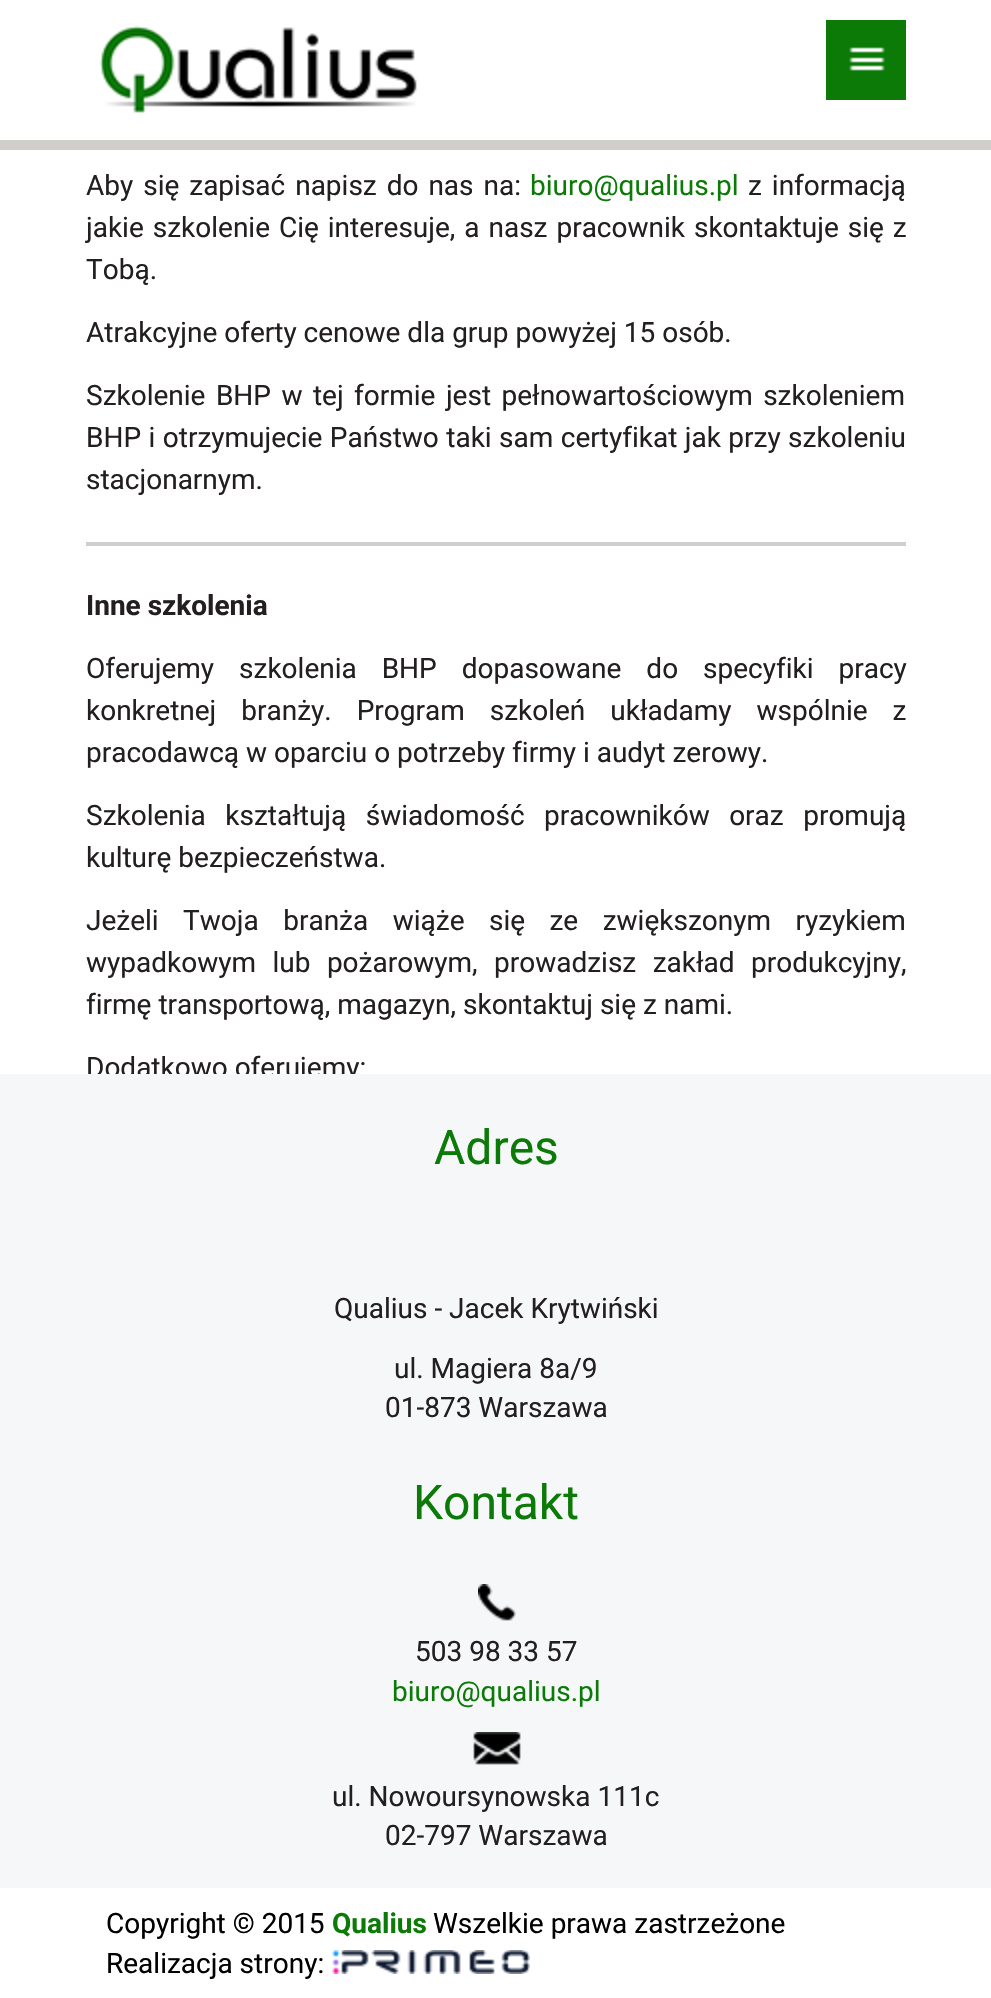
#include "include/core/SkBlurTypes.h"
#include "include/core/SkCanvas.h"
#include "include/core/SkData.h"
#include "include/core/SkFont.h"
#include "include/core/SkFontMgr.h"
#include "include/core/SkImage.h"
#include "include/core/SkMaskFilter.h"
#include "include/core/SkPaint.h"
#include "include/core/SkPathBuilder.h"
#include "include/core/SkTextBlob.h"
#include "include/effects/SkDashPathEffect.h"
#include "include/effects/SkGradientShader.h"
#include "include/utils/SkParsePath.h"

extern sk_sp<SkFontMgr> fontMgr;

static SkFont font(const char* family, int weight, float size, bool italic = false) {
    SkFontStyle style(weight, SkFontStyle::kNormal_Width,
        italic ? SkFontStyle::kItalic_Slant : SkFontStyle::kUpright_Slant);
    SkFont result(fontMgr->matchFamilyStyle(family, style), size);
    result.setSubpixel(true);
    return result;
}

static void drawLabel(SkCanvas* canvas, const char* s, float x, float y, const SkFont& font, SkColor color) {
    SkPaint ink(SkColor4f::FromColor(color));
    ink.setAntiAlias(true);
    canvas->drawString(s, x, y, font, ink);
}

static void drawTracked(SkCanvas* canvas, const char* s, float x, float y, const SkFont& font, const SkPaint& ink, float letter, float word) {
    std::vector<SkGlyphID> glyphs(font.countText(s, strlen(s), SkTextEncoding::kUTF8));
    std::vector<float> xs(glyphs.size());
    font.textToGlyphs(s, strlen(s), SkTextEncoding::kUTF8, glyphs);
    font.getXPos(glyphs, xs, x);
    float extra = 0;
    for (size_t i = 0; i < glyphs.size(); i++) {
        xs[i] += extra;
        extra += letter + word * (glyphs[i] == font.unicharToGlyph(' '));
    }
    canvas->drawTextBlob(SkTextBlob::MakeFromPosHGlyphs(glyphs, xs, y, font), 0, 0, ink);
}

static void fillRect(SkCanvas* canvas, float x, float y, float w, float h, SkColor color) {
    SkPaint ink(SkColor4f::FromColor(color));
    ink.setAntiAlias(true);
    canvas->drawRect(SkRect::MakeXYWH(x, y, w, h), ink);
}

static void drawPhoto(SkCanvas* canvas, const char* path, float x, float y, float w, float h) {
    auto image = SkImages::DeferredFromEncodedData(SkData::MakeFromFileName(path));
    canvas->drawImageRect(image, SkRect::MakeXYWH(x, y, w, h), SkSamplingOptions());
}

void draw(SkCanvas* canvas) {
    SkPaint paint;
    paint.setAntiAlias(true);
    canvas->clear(0xFFFFFFFF);
    fillRect(canvas, 0, 140, 991, 10, 0xFFD0CFCB);
    drawPhoto(canvas, "assets/img1.png", 99, 25, 318, 88);
    fillRect(canvas, 826, 20, 80, 80, 0xFF0B7A07);
    drawPhoto(canvas, "assets/img2.png", 849, 47, 36, 24);
    SkFont font1 = font("Roboto", 400, 28);
    paint.setColor(0xFF231F20);
    drawTracked(canvas, "Aby się zapisać napisz do nas na:", 86, 195, font1, paint, 0, 3);
    drawLabel(canvas, "biuro@qualius.pl", 530, 195, font1, 0xFF0B7A07);
    drawTracked(canvas, "z informacją", 748, 195, font1, paint, 0, 3);
    drawTracked(canvas, "jakie szkolenie Cię interesuje, a nasz pracownik skontaktuje się z", 86, 237, font1, paint, 0, 2);
    drawLabel(canvas, "Tobą.", 86, 279, font1, 0xFF231F20);
    drawLabel(canvas, "Atrakcyjne oferty cenowe dla grup powyżej 15 osób.", 86, 342, font1, 0xFF231F20);
    drawTracked(canvas, "Szkolenie BHP w tej formie jest pełnowartościowym szkoleniem", 86, 405, font1, paint, 0, 3.5f);
    drawTracked(canvas, "BHP i otrzymujecie Państwo taki sam certyfikat jak przy szkoleniu", 86, 447, font1, paint, 0, 0.5f);
    drawLabel(canvas, "stacjonarnym.", 86, 489, font1, 0xFF231F20);
    fillRect(canvas, 86, 542, 820, 4, 0xFFD0CFCB);
    SkFont font2 = font("Roboto", 700, 28);
    drawLabel(canvas, "Inne szkolenia", 86, 615, font2, 0xFF231F20);
    drawTracked(canvas, "Oferujemy szkolenia BHP dopasowane do specyfiki pracy", 86, 678, font1, paint, 0, 18);
    drawTracked(canvas, "konkretnej branży. Program szkoleń układamy wspólnie z", 86, 720, font1, paint, 0, 18);
    drawLabel(canvas, "pracodawcą w oparciu o potrzeby firmy i audyt zerowy.", 86, 762, font1, 0xFF231F20);
    drawTracked(canvas, "Szkolenia kształtują świadomość pracowników oraz promują", 86, 825, font1, paint, 0, 12.5f);
    drawLabel(canvas, "kulturę bezpieczeństwa.", 86, 867, font1, 0xFF231F20);
    drawTracked(canvas, "Jeżeli Twoja branża wiąże się ze zwiększonym ryzykiem", 86, 930, font1, paint, 0, 17.5f);
    drawTracked(canvas, "wypadkowym lub pożarowym, prowadzisz zakład produkcyjny,", 86, 972, font1, paint, 0, 9.5f);
    drawLabel(canvas, "firmę transportową, magazyn, skontaktuj się z nami.", 86, 1014, font1, 0xFF231F20);
    drawLabel(canvas, "Dodatkowo oferujemy:", 86, 1077, font1, 0xFF231F20);
    fillRect(canvas, 0, 1074, 991, 814, 0xFFF5F7F9);
    SkFont font3 = font("Roboto", 400, 48);
    drawLabel(canvas, "Adres", 434, 1164, font3, 0xFF0B7A07);
    drawLabel(canvas, "Qualius - Jacek Krytwiński", 334, 1318, font1, 0xFF231F20);
    drawLabel(canvas, "ul. Magiera 8a/9", 394, 1378, font1, 0xFF231F20);
    drawLabel(canvas, "01-873 Warszawa", 385, 1417, font1, 0xFF231F20);
    drawLabel(canvas, "Kontakt", 413, 1519, font3, 0xFF0B7A07);
    drawPhoto(canvas, "assets/img3.png", 478, 1584, 38, 37);
    drawLabel(canvas, "503 98 33 57", 415, 1661, font1, 0xFF231F20);
    drawLabel(canvas, "biuro@qualius.pl", 392, 1701, font1, 0xFF0B7A07);
    drawPhoto(canvas, "assets/img4.png", 473, 1732, 48, 33);
    drawLabel(canvas, "ul. Nowoursynowska 111c", 332, 1806, font1, 0xFF231F20);
    drawLabel(canvas, "02-797 Warszawa", 385, 1845, font1, 0xFF231F20);
    drawLabel(canvas, "Copyright © 2015", 106, 1933, font1, 0xFF000000);
    drawLabel(canvas, "Qualius", 332, 1933, font2, 0xFF0B7A07);
    drawLabel(canvas, "Wszelkie prawa zastrzeżone", 433, 1933, font1, 0xFF000000);
    drawLabel(canvas, "Realizacja strony:", 106, 1973, font1, 0xFF000000);
    drawPhoto(canvas, "assets/img5.png", 332, 1950, 198, 24);
}
